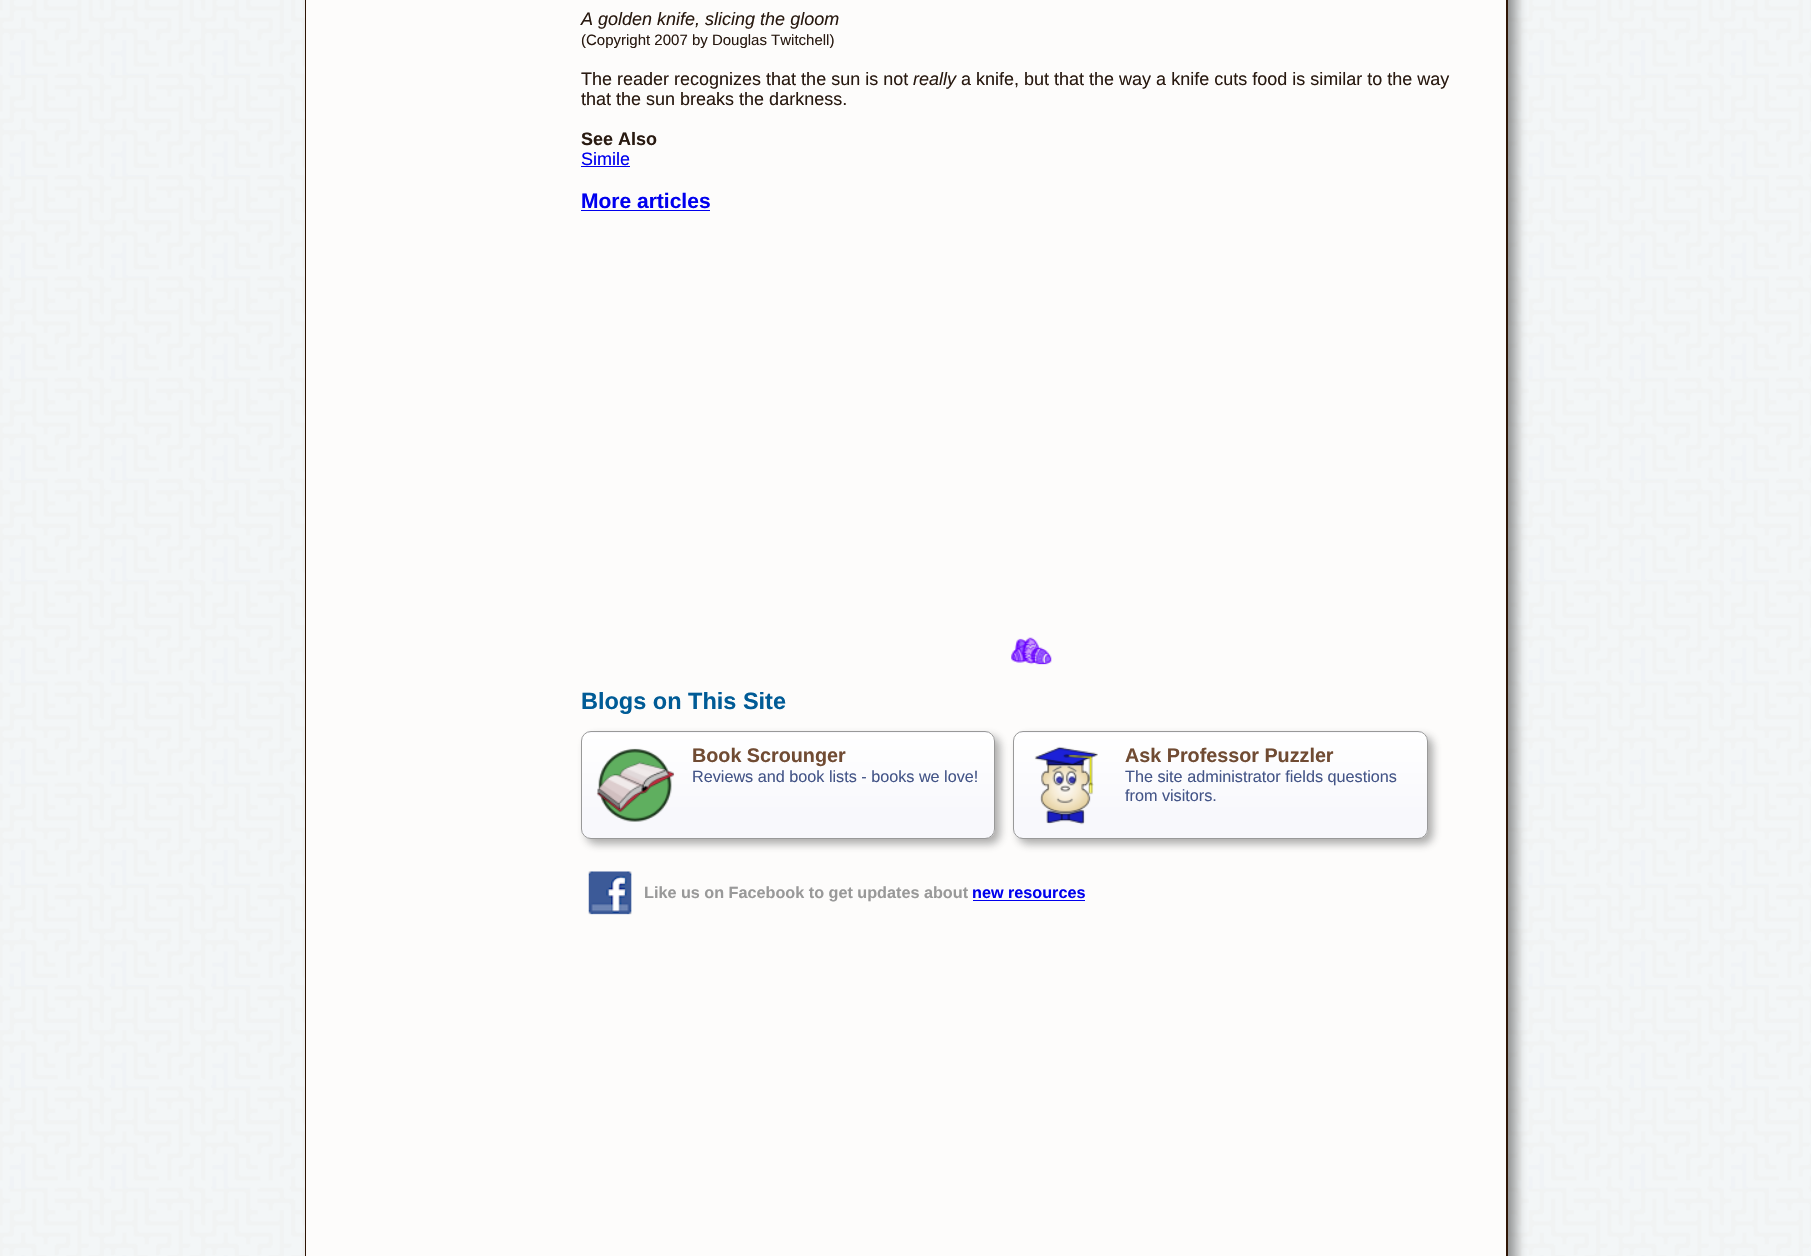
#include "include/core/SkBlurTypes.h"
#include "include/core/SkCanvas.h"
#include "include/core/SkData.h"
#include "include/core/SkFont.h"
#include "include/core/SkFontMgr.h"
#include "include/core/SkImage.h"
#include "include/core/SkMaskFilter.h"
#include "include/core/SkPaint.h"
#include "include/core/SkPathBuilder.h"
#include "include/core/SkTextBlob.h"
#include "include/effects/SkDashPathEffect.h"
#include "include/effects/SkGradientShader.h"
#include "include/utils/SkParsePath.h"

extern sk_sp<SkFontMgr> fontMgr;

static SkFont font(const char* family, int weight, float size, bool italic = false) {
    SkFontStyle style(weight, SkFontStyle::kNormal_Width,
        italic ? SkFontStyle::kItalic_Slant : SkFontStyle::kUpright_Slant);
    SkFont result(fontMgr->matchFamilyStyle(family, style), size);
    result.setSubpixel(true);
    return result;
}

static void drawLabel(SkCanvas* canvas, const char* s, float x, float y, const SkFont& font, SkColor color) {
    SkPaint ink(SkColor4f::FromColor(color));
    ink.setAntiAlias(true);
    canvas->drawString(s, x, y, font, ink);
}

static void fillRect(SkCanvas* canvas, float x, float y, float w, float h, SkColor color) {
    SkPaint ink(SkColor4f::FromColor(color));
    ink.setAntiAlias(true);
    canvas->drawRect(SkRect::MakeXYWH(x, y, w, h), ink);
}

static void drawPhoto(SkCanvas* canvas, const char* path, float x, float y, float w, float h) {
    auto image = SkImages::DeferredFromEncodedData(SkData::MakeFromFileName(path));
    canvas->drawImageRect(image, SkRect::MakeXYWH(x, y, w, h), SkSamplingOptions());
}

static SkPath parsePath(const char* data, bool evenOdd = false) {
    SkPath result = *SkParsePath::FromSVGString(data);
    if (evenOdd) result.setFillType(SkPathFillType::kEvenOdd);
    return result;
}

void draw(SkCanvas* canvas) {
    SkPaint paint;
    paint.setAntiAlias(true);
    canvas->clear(0xFFFFFFFF);
    drawPhoto(canvas, "assets/img1.png", 0, 0, 1811, 1256);
    paint.setColor(0x80323232);
    paint.setMaskFilter(SkMaskFilter::MakeBlur(kNormal_SkBlurStyle, 6));
    canvas->drawRoundRect(SkRect::MakeXYWH(314, -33, 1202, 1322), 15, 15, paint);
    paint.setMaskFilter(nullptr);
    paint.setColor(0xFFFDFCFB);
    canvas->drawPath(parsePath("M306-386H1492C1500-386 1506-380 1506-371V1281C1506 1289 1500 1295 1492 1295H320C312 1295 306 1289 306 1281Z"), paint);
    paint.setColor(0xFF2F1505);
    canvas->drawPath(parsePath("M305-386H1492C1501-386 1508-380 1508-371V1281C1508 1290 1501 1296 1492 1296H320C312 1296 305 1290 305 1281ZM306-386H1492C1500-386 1506-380 1506-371V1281C1506 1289 1500 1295 1492 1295H320C312 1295 306 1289 306 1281Z", true), paint);
    SkFont font1 = font("Liberation Sans", 400, 18, true);
    drawLabel(canvas, "A golden knife, slicing the gloom", 581, 25, font1, 0xFF291A11);
    SkFont font2 = font("Liberation Sans", 400, 15);
    drawLabel(canvas, "(Copyright 2007 by Douglas Twitchell)", 581, 45, font2, 0xFF291A11);
    SkFont font3 = font("Liberation Sans", 400, 18);
    drawLabel(canvas, "The reader recognizes that the sun is not", 581, 85, font3, 0xFF291A11);
    drawLabel(canvas, "really", 913, 85, font1, 0xFF291A11);
    drawLabel(canvas, "a knife, but that the way a knife cuts food is similar to the way", 961, 85, font3, 0xFF291A11);
    drawLabel(canvas, "that the sun breaks the darkness.", 581, 105, font3, 0xFF291A11);
    SkFont font4 = font("Liberation Sans", 700, 18);
    drawLabel(canvas, "See Also", 581, 145, font4, 0xFF291A11);
    drawLabel(canvas, "Simile", 581, 165, font3, 0xFF0000EE);
    fillRect(canvas, 581, 166, 49, 1, 0xFF0000EE);
    SkFont font5 = font("Liberation Sans", 700, 21);
    drawLabel(canvas, "More articles", 581, 208, font5, 0xFF0000EE);
    fillRect(canvas, 581, 210, 129, 1, 0xFF0000EE);
    drawPhoto(canvas, "assets/img2.png", 1011, 637, 41, 28);
    SkFont font6 = font("Liberation Sans", 700, 23.5f);
    drawLabel(canvas, "Blogs on This Site", 581, 709, font6, 0xFF005B96);
    paint.setColor(0x66323232);
    paint.setMaskFilter(SkMaskFilter::MakeBlur(kNormal_SkBlurStyle, 4));
    canvas->drawRoundRect(SkRect::MakeXYWH(586, 736, 414, 108), 10, 10, paint);
    paint.setMaskFilter(nullptr);
    {
        const SkColor colors[] = {0xFFFFFFFF, 0xFFF8F8FC};
        const float stops[] = {0, 0.76f};
        const SkPoint ends[] = {{788, 628}, {788, 733}};
        paint.setShader(SkGradientShader::MakeLinear(ends, colors, stops, 2, SkTileMode::kClamp));
        paint.setAlpha(255);
    }
    canvas->drawPath(parsePath("M591 731C589 731 587 732 585 733H991C989 732 987 731 985 731Z"), paint);
    {
        const SkColor colors[] = {0xFFFFFFFF, 0xFFF8F8FC};
        const float stops[] = {0, 0.76f};
        const SkPoint ends[] = {{788, 733}, {788, 838}};
        paint.setShader(SkGradientShader::MakeLinear(ends, colors, stops, 2, SkTileMode::kClamp));
        paint.setAlpha(255);
    }
    canvas->drawPath(parsePath("M581 741V829C581 833 583 836 587 838H989C993 836 995 833 995 829V741C995 738 993 735 991 733H585C583 735 581 738 581 741Z"), paint);
    paint.setStroke(true);
    paint.setStrokeWidth(1);
    paint.setShader(nullptr);
    paint.setColor(0xFF999999);
    canvas->drawRoundRect(SkRect::MakeXYWH(581.5f, 731.5f, 413, 107), 9.5f, 9.5f, paint);
    drawPhoto(canvas, "assets/img3.png", 596, 748, 79, 74);
    SkFont font7 = font("Liberation Sans", 700, 19.75f);
    drawLabel(canvas, "Book Scrounger", 692, 762, font7, 0xFF704B33);
    SkFont font8 = font("Liberation Sans", 400, 16.2f);
    drawLabel(canvas, "Reviews and book lists - books we love!", 692, 782, font8, 0xFF445588);
    paint.setStroke(false);
    paint.setColor(0x66323232);
    paint.setMaskFilter(SkMaskFilter::MakeBlur(kNormal_SkBlurStyle, 4));
    canvas->drawRoundRect(SkRect::MakeXYWH(1018, 736, 415, 108), 10, 10, paint);
    paint.setMaskFilter(nullptr);
    {
        const SkColor colors[] = {0xFFFFFFFF, 0xFFF8F8FC};
        const float stops[] = {0, 0.76f};
        const SkPoint ends[] = {{1220, 628}, {1220, 733}};
        paint.setShader(SkGradientShader::MakeLinear(ends, colors, stops, 2, SkTileMode::kClamp));
        paint.setAlpha(255);
    }
    canvas->drawPath(parsePath("M1023 731C1021 731 1019 732 1017 733H1424C1422 732 1420 731 1418 731Z"), paint);
    {
        const SkColor colors[] = {0xFFFFFFFF, 0xFFF8F8FC};
        const float stops[] = {0, 0.76f};
        const SkPoint ends[] = {{1220, 733}, {1220, 838}};
        paint.setShader(SkGradientShader::MakeLinear(ends, colors, stops, 2, SkTileMode::kClamp));
        paint.setAlpha(255);
    }
    canvas->drawPath(parsePath("M1013 741V829C1013 833 1015 836 1019 838H1422C1426 836 1428 833 1428 829V741C1428 738 1426 735 1424 733H1017C1015 735 1013 738 1013 741Z"), paint);
    paint.setStroke(true);
    paint.setShader(nullptr);
    paint.setColor(0xFF999999);
    canvas->drawRoundRect(SkRect::MakeXYWH(1013.5f, 731.5f, 414, 107), 9.5f, 9.5f, paint);
    drawPhoto(canvas, "assets/img4.png", 1034, 746, 64, 79);
    drawLabel(canvas, "Ask Professor Puzzler", 1125, 762, font7, 0xFF704B33);
    drawLabel(canvas, "The site administrator fields questions", 1125, 782, font8, 0xFF445588);
    drawLabel(canvas, "from visitors.", 1125, 801, font8, 0xFF445588);
    drawPhoto(canvas, "assets/img5.png", 588, 871, 44, 44);
    SkFont font9 = font("Liberation Sans", 700, 16.2f);
    drawLabel(canvas, "Like us on Facebook to get updates about", 644, 898, font9, 0xFF999999);
    drawLabel(canvas, "new resources", 972, 898, font9, 0xFF0000EE);
    fillRect(canvas, 973, 900, 112, 1, 0xFF0000EE);
}
